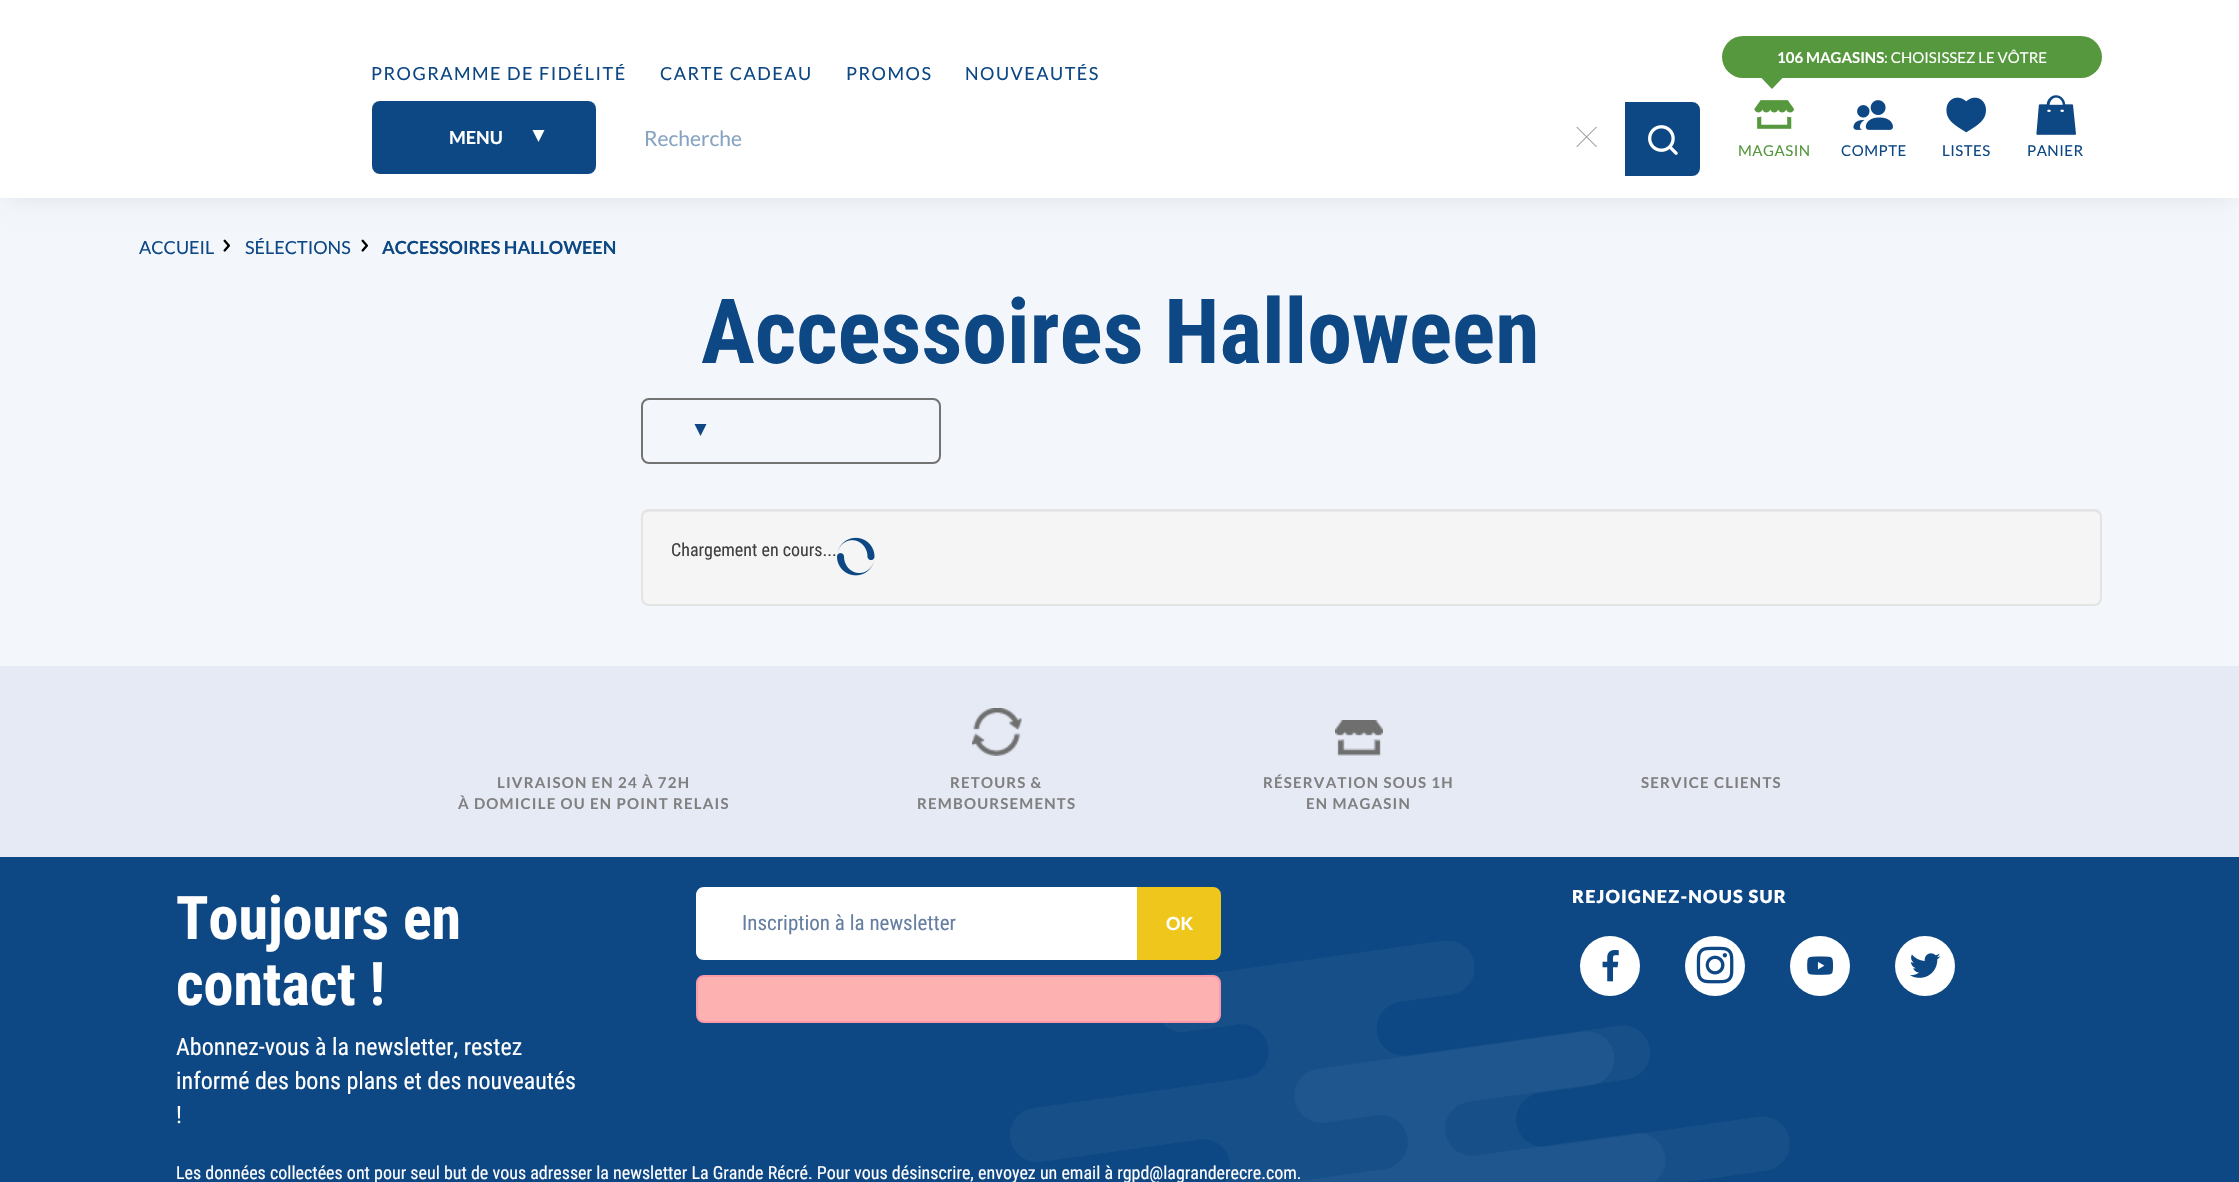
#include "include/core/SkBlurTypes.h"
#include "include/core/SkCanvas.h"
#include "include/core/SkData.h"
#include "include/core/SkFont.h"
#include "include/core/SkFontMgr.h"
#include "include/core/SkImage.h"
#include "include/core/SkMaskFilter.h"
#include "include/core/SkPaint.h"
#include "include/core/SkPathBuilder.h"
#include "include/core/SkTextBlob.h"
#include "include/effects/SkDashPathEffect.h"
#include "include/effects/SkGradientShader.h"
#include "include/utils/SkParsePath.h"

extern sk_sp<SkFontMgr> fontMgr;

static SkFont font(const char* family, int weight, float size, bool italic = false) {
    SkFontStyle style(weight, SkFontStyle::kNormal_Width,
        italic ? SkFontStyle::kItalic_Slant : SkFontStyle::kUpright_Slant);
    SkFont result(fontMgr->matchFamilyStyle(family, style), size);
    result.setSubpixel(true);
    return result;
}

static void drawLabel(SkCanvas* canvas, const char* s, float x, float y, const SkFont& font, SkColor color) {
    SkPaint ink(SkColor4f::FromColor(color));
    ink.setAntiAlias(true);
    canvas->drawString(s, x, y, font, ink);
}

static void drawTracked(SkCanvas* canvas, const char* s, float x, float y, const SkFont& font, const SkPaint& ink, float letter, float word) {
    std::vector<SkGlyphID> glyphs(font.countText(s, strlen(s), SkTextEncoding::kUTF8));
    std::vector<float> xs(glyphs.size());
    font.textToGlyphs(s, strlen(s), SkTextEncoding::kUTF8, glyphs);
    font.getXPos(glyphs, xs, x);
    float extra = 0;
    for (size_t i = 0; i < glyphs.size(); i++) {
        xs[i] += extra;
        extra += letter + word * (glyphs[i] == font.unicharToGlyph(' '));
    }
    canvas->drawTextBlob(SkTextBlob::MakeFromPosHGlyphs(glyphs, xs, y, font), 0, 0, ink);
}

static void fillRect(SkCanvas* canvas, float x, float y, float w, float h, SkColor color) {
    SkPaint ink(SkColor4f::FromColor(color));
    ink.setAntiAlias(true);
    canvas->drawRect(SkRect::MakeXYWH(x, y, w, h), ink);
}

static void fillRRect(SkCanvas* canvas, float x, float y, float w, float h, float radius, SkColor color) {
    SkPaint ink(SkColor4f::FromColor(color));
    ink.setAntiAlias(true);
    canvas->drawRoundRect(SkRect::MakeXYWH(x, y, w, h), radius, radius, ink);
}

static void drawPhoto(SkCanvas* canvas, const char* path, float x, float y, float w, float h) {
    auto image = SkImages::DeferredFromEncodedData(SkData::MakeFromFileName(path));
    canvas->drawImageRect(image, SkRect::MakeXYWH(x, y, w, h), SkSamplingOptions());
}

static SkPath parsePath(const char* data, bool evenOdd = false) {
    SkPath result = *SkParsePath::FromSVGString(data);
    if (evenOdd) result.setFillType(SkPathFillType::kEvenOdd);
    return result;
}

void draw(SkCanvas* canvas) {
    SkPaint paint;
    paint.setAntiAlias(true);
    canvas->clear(0xFFF3F6FB);
    paint.setColor(0x14000000);
    paint.setMaskFilter(SkMaskFilter::MakeBlur(kNormal_SkBlurStyle, 11));
    canvas->drawRect(SkRect::MakeXYWH(8, 15, 2224, 183), paint);
    paint.setMaskFilter(nullptr);
    fillRect(canvas, 0, 0, 2239, 198, 0xFFFFFFFF);
    SkFont font1 = font("Lato", 400, 18);
    paint.setColor(0xFF0D4884);
    drawTracked(canvas, "PROGRAMME DE FIDÉLITÉ", 371, 80, font1, paint, 1.5f, 0);
    drawTracked(canvas, "CARTE CADEAU", 660, 80, font1, paint, 1.5f, 0);
    drawTracked(canvas, "PROMOS", 846, 80, font1, paint, 1.5f, 0);
    drawTracked(canvas, "NOUVEAUTÉS", 965, 80, font1, paint, 1.5f, 0);
    fillRRect(canvas, 372, 101, 224, 73, 8, 0xFF0D4884);
    SkFont font2 = font("Lato", 700, 18);
    drawLabel(canvas, "MENU", 449, 144, font2, 0xFFFFFFFF);
    paint.setColor(0xFFFFFFFF);
    canvas->drawPath(parsePath("M538.5 142L532.5 130H544.5Z"), paint);
    SkFont font3 = font("Lato", 400, 21);
    drawLabel(canvas, "Recherche", 644, 146, font3, 0xFF86A4C2);
    drawPhoto(canvas, "assets/img1.png", 1576, 126, 21, 21);
    paint.setColor(0xFF0D4884);
    canvas->drawPath(parsePath("M1626 103H1692C1696 103 1699 106 1699 110V168C1699 172 1696 175 1692 175H1626Z"), paint);
    paint.setStroke(true);
    paint.setStrokeWidth(2);
    canvas->drawPath(parsePath("M1626 103H1692C1696 103 1699 106 1699 110V168C1699 172 1696 175 1692 175H1626Z"), paint);
    drawPhoto(canvas, "assets/img2.png", 1648, 125, 30, 30);
    fillRRect(canvas, 1722, 36, 380, 42, 21, 0xFF56983D);
    SkFont font4 = font("Lato", 700, 15);
    drawLabel(canvas, "106 MAGASINS", 1777, 63, font4, 0xFFFFFFFF);
    SkFont font5 = font("Lato", 400, 15);
    drawLabel(canvas, ": CHOISISSEZ LE VÔTRE", 1884, 63, font5, 0xFFFFFFFF);
    paint.setStroke(false);
    paint.setColor(0xFF56983D);
    canvas->drawPath(parsePath("M1772 67.5L1782.5 78L1772 89L1761.5 78Z"), paint);
    drawPhoto(canvas, "assets/img3.png", 1754, 100, 40, 29);
    drawTracked(canvas, "MAGASIN", 1738, 156, font5, paint, 0.5f, 0);
    drawPhoto(canvas, "assets/img4.png", 1853, 100, 40, 30);
    paint.setColor(0xFF0D4884);
    drawTracked(canvas, "COMPTE", 1841, 156, font5, paint, 0.5f, 0);
    drawPhoto(canvas, "assets/img5.png", 1946, 97, 40, 36);
    drawTracked(canvas, "LISTES", 1942, 156, font5, paint, 0.5f, 0);
    drawPhoto(canvas, "assets/img6.png", 2036, 95, 40, 40);
    drawTracked(canvas, "PANIER", 2027, 156, font5, paint, 0.5f, 0);
    drawLabel(canvas, "ACCUEIL", 139, 254, font1, 0xFF0D4884);
    drawPhoto(canvas, "assets/img7.png", 223, 239, 7, 13);
    drawLabel(canvas, "SÉLECTIONS", 245, 254, font1, 0xFF0D4884);
    drawPhoto(canvas, "assets/img7.png", 361, 239, 7, 13);
    drawLabel(canvas, "ACCESSOIRES HALLOWEEN", 382, 254, font2, 0xFF0D4884);
    SkFont font6 = font("Roboto Condensed", 700, 90);
    drawLabel(canvas, "Accessoires Halloween", 701, 363, font6, 0xFF0D4884);
    paint.setStroke(true);
    paint.setColor(0xFF737373);
    canvas->drawRoundRect(SkRect::MakeXYWH(642, 399, 298, 64), 7, 7, paint);
    paint.setStroke(false);
    paint.setColor(0xFF0D4884);
    canvas->drawPath(parsePath("M700.5 436L694.5 424H706.5Z"), paint);
    fillRRect(canvas, 641, 509, 1461, 97, 8, 0xFFF5F5F5);
    paint.setColor(0xFFE9E9E9);
    canvas->drawPath(parsePath("M648 512H2094C2097 512 2100 514 2100 518C2100 514 2099 510 2094 510H648C643 510 642 514 642 518C642 514 645 512 648 512Z"), paint);
    paint.setStroke(true);
    paint.setColor(0xFFE3E3E3);
    canvas->drawRoundRect(SkRect::MakeXYWH(642, 510, 1459, 95), 7, 7, paint);
    SkFont font7 = font("Roboto Condensed", 400, 18);
    drawLabel(canvas, "Chargement en cours...", 671, 556, font7, 0xFF404040);
    drawPhoto(canvas, "assets/img8.png", 837, 537, 38, 39);
    fillRect(canvas, 0, 666, 2239, 191, 0xFFE6EAF5);
    paint.setStroke(false);
    paint.setColor(0xFF808080);
    drawTracked(canvas, "LIVRAISON EN 24 À 72H", 497, 788, font4, paint, 1.2f, 0);
    drawTracked(canvas, "À DOMICILE OU EN POINT RELAIS", 458, 809, font4, paint, 1.2f, 0);
    drawPhoto(canvas, "assets/img9.png", 972, 708, 50, 48);
    drawTracked(canvas, "RETOURS &", 950, 788, font4, paint, 1.2f, 0);
    drawTracked(canvas, "REMBOURSEMENTS", 917, 809, font4, paint, 1.2f, 0);
    drawPhoto(canvas, "assets/img10.png", 1335, 720, 48, 36);
    drawTracked(canvas, "RÉSERVATION SOUS 1H", 1263, 788, font4, paint, 1.2f, 0);
    drawTracked(canvas, "EN MAGASIN", 1306, 809, font4, paint, 1.2f, 0);
    drawTracked(canvas, "SERVICE CLIENTS", 1641, 788, font4, paint, 1.2f, 0);
    fillRect(canvas, 0, 857, 2239, 325, 0xFF0D4884);
    SkFont font8 = font("Roboto Condensed", 700, 60);
    drawLabel(canvas, "Toujours en", 176, 939, font8, 0xFFFFFFFF);
    drawLabel(canvas, "contact !", 176, 1005, font8, 0xFFFFFFFF);
    SkFont font9 = font("Roboto Condensed", 400, 24);
    drawLabel(canvas, "Abonnez-vous à la newsletter, restez", 176, 1055, font9, 0xFFFFFFFF);
    drawLabel(canvas, "informé des bons plans et des nouveautés", 176, 1089, font9, 0xFFFFFFFF);
    drawLabel(canvas, "!", 176, 1123, font9, 0xFFFFFFFF);
    drawPhoto(canvas, "assets/img15.png", 1010, 941, 780, 241);
    paint.setColor(0xFFFFFFFF);
    canvas->drawPath(parsePath("M704 887H1139V960H704C699.5 960 696 956.5 696 952V895C696 890.5 699.5 887 704 887Z"), paint);
    SkFont font10 = font("Roboto Condensed", 400, 21);
    drawLabel(canvas, "Inscription à la newsletter", 742, 930, font10, 0xFF657FA3);
    paint.setColor(0xFFEFC71C);
    canvas->drawPath(parsePath("M1138 888H1213C1217 888 1220 891 1220 895V952C1220 956 1217 959 1213 959H1138Z"), paint);
    paint.setStroke(true);
    canvas->drawPath(parsePath("M1138 888H1213C1217 888 1220 891 1220 895V952C1220 956 1217 959 1213 959H1138Z"), paint);
    drawLabel(canvas, "OK", 1166, 930, font2, 0xFFFFFFFF);
    paint.setStroke(false);
    paint.setColor(0xFFFDB1B1);
    canvas->drawRoundRect(SkRect::MakeXYWH(697, 976, 523, 46), 7, 7, paint);
    paint.setStroke(true);
    paint.setColor(0xFFFC99A9);
    canvas->drawRoundRect(SkRect::MakeXYWH(697, 976, 523, 46), 7, 7, paint);
    drawLabel(canvas, "Les données collectées ont pour seul but de vous adresser la newsletter La Grande Récré. Pour vous désinscrire, envoyez un email à rgpd@lagranderecre.com.", 176, 1179, font7, 0xFFFFFFFF);
    SkFont font11 = font("Lato", 900, 18);
    paint.setStroke(false);
    paint.setColor(0xFFFFFFFF);
    drawTracked(canvas, "REJOIGNEZ-NOUS SUR", 1572, 903, font11, paint, 1.2f, 0);
    canvas->drawCircle(1610, 966, 30, paint);
    drawPhoto(canvas, "assets/img11.png", 1602, 950, 17, 32);
    canvas->drawCircle(1715, 966, 30, paint);
    drawPhoto(canvas, "assets/img12.png", 1696, 946, 38, 38);
    canvas->drawCircle(1820, 966, 30, paint);
    drawPhoto(canvas, "assets/img13.png", 1807, 956, 27, 19);
    canvas->drawCircle(1925, 966, 30, paint);
    drawPhoto(canvas, "assets/img14.png", 1910, 953, 31, 25);
}
